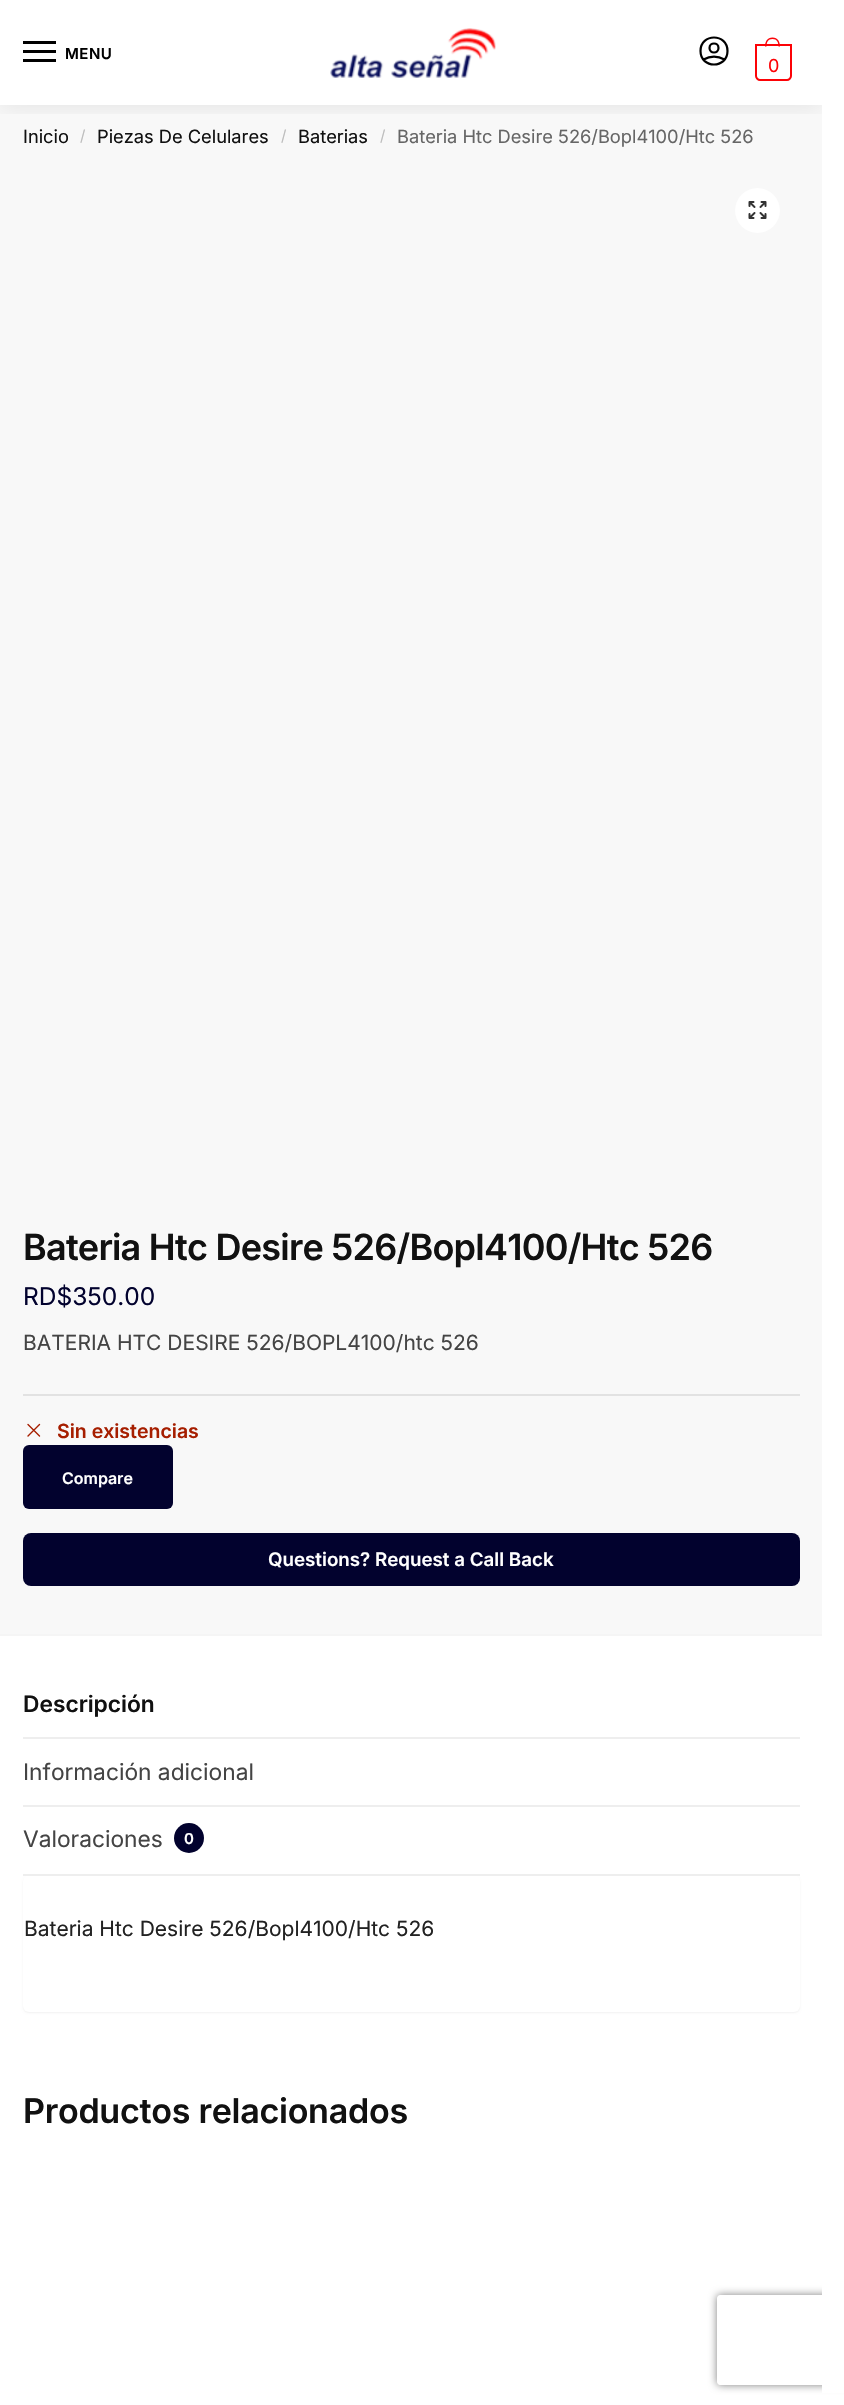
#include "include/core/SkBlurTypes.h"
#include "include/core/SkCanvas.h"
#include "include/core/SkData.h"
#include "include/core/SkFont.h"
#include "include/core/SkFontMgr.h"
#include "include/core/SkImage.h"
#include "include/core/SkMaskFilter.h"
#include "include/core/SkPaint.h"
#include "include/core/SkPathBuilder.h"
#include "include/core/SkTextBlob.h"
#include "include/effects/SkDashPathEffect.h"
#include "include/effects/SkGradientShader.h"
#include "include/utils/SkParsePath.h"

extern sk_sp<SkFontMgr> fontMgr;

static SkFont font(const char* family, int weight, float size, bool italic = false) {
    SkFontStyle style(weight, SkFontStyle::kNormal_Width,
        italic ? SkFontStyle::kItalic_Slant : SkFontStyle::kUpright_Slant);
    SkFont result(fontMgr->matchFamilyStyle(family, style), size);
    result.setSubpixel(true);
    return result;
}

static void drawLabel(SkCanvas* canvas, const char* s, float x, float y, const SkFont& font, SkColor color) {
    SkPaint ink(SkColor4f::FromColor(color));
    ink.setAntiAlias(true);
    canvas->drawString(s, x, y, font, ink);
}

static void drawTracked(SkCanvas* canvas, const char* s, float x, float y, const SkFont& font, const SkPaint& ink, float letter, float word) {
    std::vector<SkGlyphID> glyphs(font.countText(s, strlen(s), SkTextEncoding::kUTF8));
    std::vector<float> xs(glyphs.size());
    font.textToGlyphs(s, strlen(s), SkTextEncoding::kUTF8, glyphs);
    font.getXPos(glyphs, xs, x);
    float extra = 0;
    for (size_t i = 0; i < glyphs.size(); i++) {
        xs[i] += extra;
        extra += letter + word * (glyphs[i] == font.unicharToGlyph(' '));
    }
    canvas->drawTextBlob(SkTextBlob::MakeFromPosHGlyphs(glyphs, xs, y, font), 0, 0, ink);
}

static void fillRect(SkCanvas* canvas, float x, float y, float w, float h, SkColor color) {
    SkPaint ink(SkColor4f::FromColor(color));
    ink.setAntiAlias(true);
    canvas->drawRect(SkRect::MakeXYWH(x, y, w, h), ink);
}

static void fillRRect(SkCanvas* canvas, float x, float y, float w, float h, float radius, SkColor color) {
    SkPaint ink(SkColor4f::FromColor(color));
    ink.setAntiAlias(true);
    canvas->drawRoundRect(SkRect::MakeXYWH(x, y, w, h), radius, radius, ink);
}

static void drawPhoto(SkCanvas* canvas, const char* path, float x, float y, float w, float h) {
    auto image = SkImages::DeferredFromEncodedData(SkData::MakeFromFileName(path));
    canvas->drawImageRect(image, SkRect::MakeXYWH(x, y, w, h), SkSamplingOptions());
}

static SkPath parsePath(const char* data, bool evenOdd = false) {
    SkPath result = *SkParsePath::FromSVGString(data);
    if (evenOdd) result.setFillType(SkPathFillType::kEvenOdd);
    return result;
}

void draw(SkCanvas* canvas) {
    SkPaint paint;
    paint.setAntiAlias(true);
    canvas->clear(0xFFFFFFFF);
    fillRect(canvas, 0, 105, 822, 1529, 0xFFF8F8F8);
    canvas->save();
    canvas->clipRect(SkRect::MakeXYWH(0, 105, 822, 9));
    paint.setColor(0x14000000);
    paint.setMaskFilter(SkMaskFilter::MakeBlur(kNormal_SkBlurStyle, 11));
    canvas->drawRect(SkRect::MakeXYWH(0, 2, 822, 105), paint);
    paint.setMaskFilter(nullptr);
    canvas->restore();
    fillRect(canvas, 23, 41, 33, 3, 0xFF000000);
    fillRect(canvas, 23, 50, 33, 3, 0xFF000000);
    SkFont font1 = font("Inter", 600, 15);
    paint.setColor(0xFF000000);
    drawTracked(canvas, "MENU", 65, 59, font1, paint, 0.5f, 0);
    fillRect(canvas, 23, 59, 33, 3, 0xFF000000);
    drawPhoto(canvas, "assets/img1.png", 330, 28, 166, 50);
    paint.setStroke(true);
    paint.setStrokeWidth(2.2f);
    paint.setStrokeCap(SkPaint::kRound_Cap);
    paint.setStrokeJoin(SkPaint::kRound_Join);
    canvas->drawPath(parsePath("M703.5 59.5C710 56 718 56 724.5 59.5M718.5 48C718.5 54 709.5 54 709.5 48C709.5 42 718.5 42 718.5 48ZM727.5 51C727.5 69 700.5 69 700.5 51C700.5 33 727.5 33 727.5 51Z"), paint);
    paint.setStrokeWidth(2);
    paint.setStrokeCap(SkPaint::kButt_Cap);
    paint.setStrokeJoin(SkPaint::kMiter_Join);
    paint.setColor(0xFFFC0307);
    canvas->drawPath(parsePath("M756 45H791V76C791 78 789 80 787 80H760C758 80 756 78 756 76Z"), paint);
    paint.setStroke(false);
    canvas->drawPath(parsePath("M772.5 37.5C778 37.5 780 42 780 46.5H765C765 42 767 37.5 772.5 37.5ZM772.5 39C777 39 778.5 42.5 778.5 46.5H766.5C766.5 42.5 768 39 772.5 39Z", true), paint);
    SkFont font2 = font("Inter", 400, 18);
    drawTracked(canvas, "0", 768, 72, font2, paint, -1, 0);
    canvas->save();
    canvas->clipPath(parsePath("M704 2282H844V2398H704ZM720 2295H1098C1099.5 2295 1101 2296.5 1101 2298V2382C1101 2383.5 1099.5 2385 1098 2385H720C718.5 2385 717 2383.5 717 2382V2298C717 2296.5 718.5 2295 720 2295Z", true), true);
    paint.setColor(0xFF808080);
    paint.setMaskFilter(SkMaskFilter::MakeBlur(kNormal_SkBlurStyle, 4));
    canvas->drawRoundRect(SkRect::MakeXYWH(717, 2295, 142, 90), 3, 3, paint);
    paint.setMaskFilter(nullptr);
    canvas->restore();
    fillRect(canvas, 822, 0, 22, 2393, 0xFFFFFFFF);
    SkFont font3 = font("Inter", 400, 18.25f);
    drawLabel(canvas, "Inicio", 23, 143, font3, 0xFF111111);
    SkFont font4 = font("Inter", 400, 15);
    drawLabel(canvas, "/", 80, 141, font4, 0xFFBEBEBE);
    drawLabel(canvas, "Piezas De Celulares", 97, 143, font3, 0xFF111111);
    drawLabel(canvas, "/", 281, 141, font4, 0xFFBEBEBE);
    drawLabel(canvas, "Baterias", 298, 143, font3, 0xFF111111);
    drawLabel(canvas, "/", 380, 141, font4, 0xFFBEBEBE);
    drawLabel(canvas, "Bateria Htc Desire 526/Bopl4100/Htc 526", 397, 143, font3, 0xFF666666);
    paint.setColor(0xFFFFFFFF);
    canvas->drawCircle(757.5f, 210.5f, 22.5f, paint);
    drawPhoto(canvas, "assets/img2.png", 748, 201, 19, 18);
    SkFont font5 = font("Inter", 600, 36);
    paint.setColor(0xFF111111);
    drawTracked(canvas, "Bateria Htc Desire 526/Bopl4100/Htc 526", 23, 1260, font5, paint, -0.75f, 0);
    SkFont font6 = font("Inter", 400, 24.5f);
    drawLabel(canvas, "RD$350.00", 23, 1305, font6, 0xFF02022E);
    SkFont font7 = font("Inter", 400, 21);
    drawLabel(canvas, "BATERIA HTC DESIRE 526/BOPL4100/htc 526", 23, 1350, font7, 0xFF444444);
    fillRect(canvas, 23, 1394, 777, 2, 0xFFE2E2E2);
    paint.setStroke(true);
    paint.setStrokeWidth(1.4f);
    paint.setStrokeCap(SkPaint::kRound_Cap);
    paint.setStrokeJoin(SkPaint::kRound_Join);
    paint.setColor(0xFFA61E00);
    canvas->drawPath(parsePath("M28 1436L39.5 1424.5M28 1424.5L39.5 1436"), paint);
    SkFont font8 = font("Inter", 600, 19.5f);
    drawLabel(canvas, "Sin existencias", 57, 1438, font8, 0xFFA61E00);
    fillRRect(canvas, 23, 1445, 150, 64, 6, 0xFF02022E);
    SkFont font9 = font("Inter", 600, 16);
    drawLabel(canvas, "Compare", 62, 1484, font9, 0xFFFFFFFF);
    fillRRect(canvas, 23, 1533, 777, 53, 8, 0xFF02022E);
    SkFont font10 = font("Inter", 600, 18.75f);
    drawLabel(canvas, "Questions? Request a Call Back", 268, 1566, font10, 0xFFFFFFFF);
    fillRect(canvas, 0, 1634, 822, 2, 0xFFF5F5F5);
    fillRect(canvas, 23, 1737, 777, 2, 0xFFEEEEEE);
    SkFont font11 = font("Inter", 600, 22.75f);
    drawLabel(canvas, "Descripción", 23, 1712, font11, 0xFF111111);
    fillRect(canvas, 23, 1805, 777, 2, 0xFFEEEEEE);
    SkFont font12 = font("Inter", 400, 22.75f);
    drawLabel(canvas, "Información adicional", 23, 1780, font12, 0xFF444444);
    paint.setStroke(false);
    paint.setColor(0x0D000000);
    paint.setMaskFilter(SkMaskFilter::MakeBlur(kNormal_SkBlurStyle, 1));
    canvas->drawRoundRect(SkRect::MakeXYWH(23, 1877, 777, 136), 6, 6, paint);
    paint.setMaskFilter(nullptr);
    fillRRect(canvas, 23, 1875, 777, 137, 6, 0xFFFFFFFF);
    fillRect(canvas, 23, 1874, 777, 2, 0xFFEEEEEE);
    drawLabel(canvas, "Valoraciones", 23, 1847, font12, 0xFF444444);
    paint.setColor(0xFF02022E);
    canvas->drawCircle(189, 1838, 15, paint);
    drawLabel(canvas, "0", 184, 1844, font1, 0xFFFFFFFF);
    drawLabel(canvas, "Bateria Htc Desire 526/Bopl4100/Htc 526", 24, 1936, font7, 0xFF222222);
    SkFont font13 = font("Inter", 600, 34.1f);
    paint.setColor(0xFF111111);
    drawTracked(canvas, "Productos relacionados", 23, 2123, font13, paint, -0.3f, 0);
}
